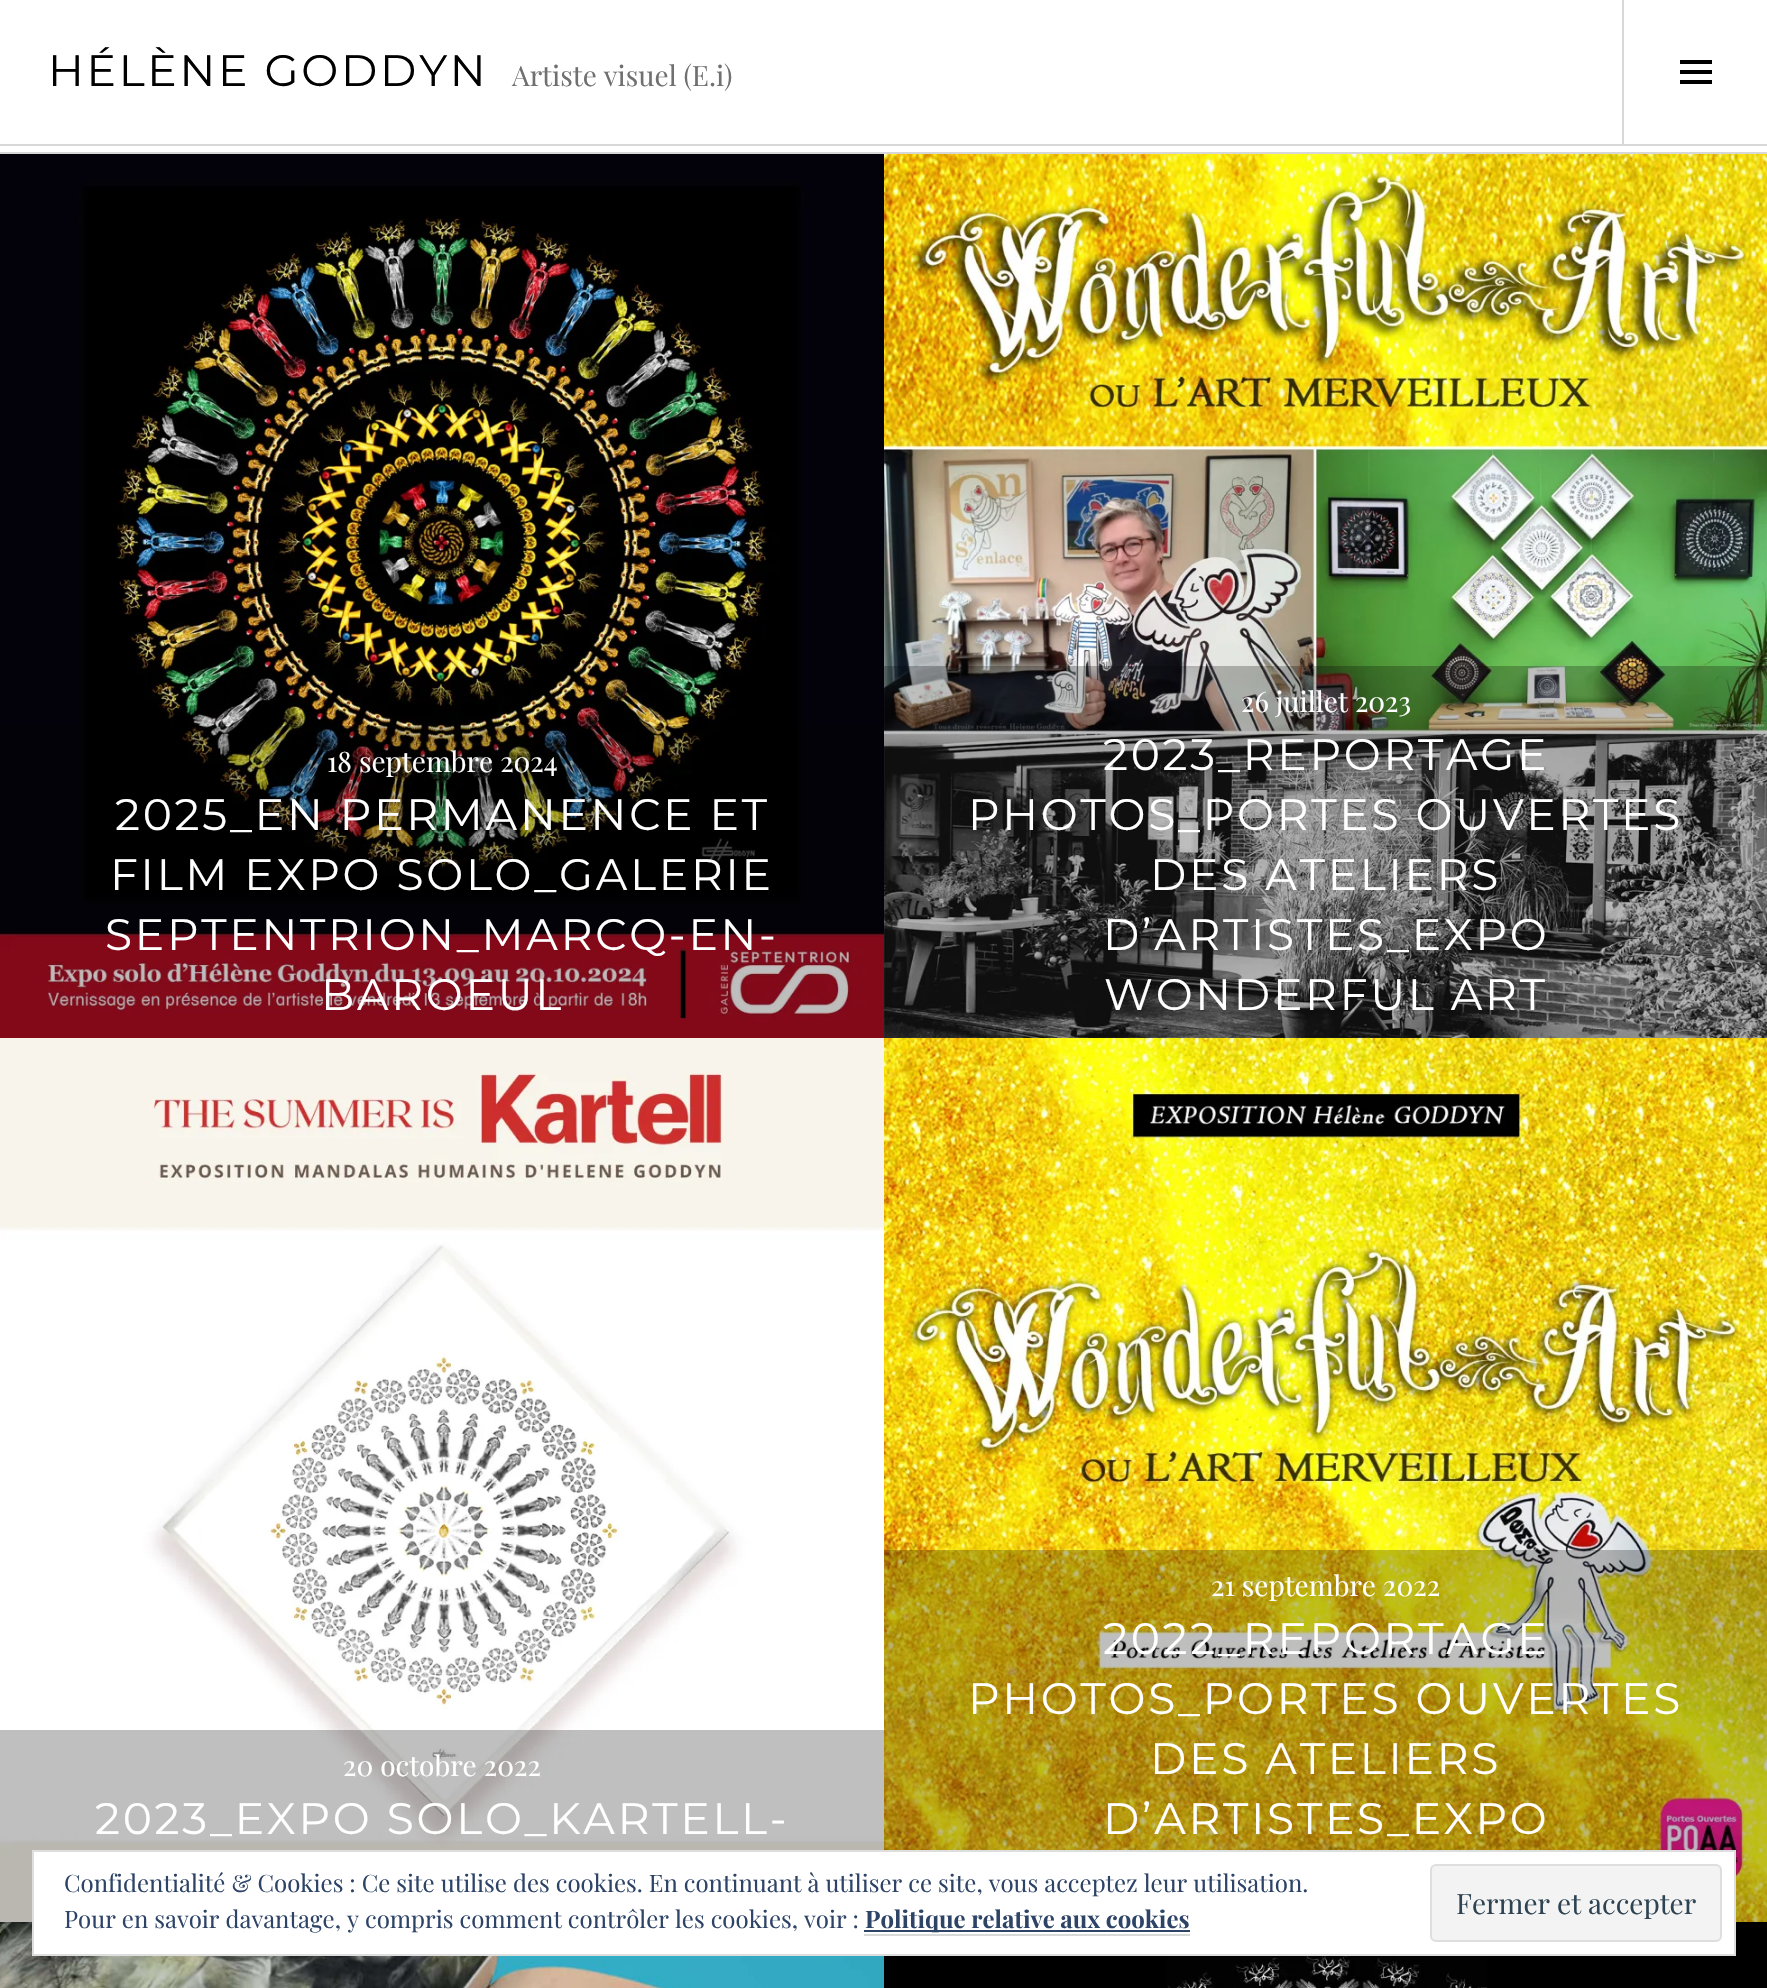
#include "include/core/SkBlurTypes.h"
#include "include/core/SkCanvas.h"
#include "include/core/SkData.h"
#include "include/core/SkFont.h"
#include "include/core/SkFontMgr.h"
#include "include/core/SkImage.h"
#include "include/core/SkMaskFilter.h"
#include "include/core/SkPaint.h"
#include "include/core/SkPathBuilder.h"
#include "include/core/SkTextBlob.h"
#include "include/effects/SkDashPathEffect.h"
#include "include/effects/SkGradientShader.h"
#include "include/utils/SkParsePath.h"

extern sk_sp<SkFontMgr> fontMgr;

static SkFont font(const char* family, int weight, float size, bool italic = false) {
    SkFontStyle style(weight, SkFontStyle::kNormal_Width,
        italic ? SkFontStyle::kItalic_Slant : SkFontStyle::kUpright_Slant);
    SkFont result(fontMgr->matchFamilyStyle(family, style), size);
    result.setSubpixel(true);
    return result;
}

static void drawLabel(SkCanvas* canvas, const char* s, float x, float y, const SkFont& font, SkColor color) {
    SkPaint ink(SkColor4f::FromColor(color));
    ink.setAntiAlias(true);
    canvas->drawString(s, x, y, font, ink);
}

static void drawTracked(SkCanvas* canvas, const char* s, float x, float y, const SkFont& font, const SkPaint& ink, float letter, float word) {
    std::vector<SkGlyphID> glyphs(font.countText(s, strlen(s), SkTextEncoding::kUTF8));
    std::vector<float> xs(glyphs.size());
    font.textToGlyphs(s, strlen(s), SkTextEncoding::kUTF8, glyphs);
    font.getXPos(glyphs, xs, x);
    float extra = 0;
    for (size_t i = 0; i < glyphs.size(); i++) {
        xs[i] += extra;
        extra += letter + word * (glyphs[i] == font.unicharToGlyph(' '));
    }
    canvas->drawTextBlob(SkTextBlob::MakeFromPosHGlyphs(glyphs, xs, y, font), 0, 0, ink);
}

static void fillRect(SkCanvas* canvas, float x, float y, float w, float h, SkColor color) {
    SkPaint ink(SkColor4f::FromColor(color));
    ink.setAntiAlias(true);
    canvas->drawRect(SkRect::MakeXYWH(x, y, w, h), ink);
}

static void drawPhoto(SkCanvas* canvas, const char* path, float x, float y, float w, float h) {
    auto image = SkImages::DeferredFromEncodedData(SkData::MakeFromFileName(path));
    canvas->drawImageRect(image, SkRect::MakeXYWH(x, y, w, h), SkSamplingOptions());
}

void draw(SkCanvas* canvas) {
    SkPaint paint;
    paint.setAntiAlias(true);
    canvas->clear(0xFFFFFFFF);
    fillRect(canvas, 0, 144, 1767, 2, 0xFFD8D8D8);
    SkFont font1 = font("Montserrat", 400, 44);
    paint.setColor(0xFF000000);
    drawTracked(canvas, "HÉLÈNE GODDYN", 48, 86, font1, paint, 2.75f, 0);
    SkFont font2 = font("Playfair Display", 400, 28);
    drawLabel(canvas, "Artiste visuel (E.i)", 512, 86, font2, 0xFF707070);
    fillRect(canvas, 1622, 0, 2, 144, 0xFFD8D8D8);
    drawPhoto(canvas, "assets/img1.png", 1680, 60, 32, 24);
    fillRect(canvas, 0, 152, 1767, 2, 0xFFD8D8D8);
    drawPhoto(canvas, "assets/img2.png", 0, 154, 884, 884);
    fillRect(canvas, 0, 726, 884, 312, 0x40000000);
    drawLabel(canvas, "18 septembre 2024", 327, 772, font2, 0xFFFFFFFF);
    paint.setColor(0xFFFFFFFF);
    drawTracked(canvas, "2025_EN PERMANENCE ET", 115, 830, font1, paint, 2.75f, 0);
    drawTracked(canvas, "FILM EXPO SOLO_GALERIE", 110, 890, font1, paint, 2.75f, 0);
    drawTracked(canvas, "SEPTENTRION_MARCQ-EN-", 105, 950, font1, paint, 2.75f, 0);
    drawTracked(canvas, "BAROEUL", 321, 1010, font1, paint, 2.75f, 0);
    drawPhoto(canvas, "assets/img3.png", 884, 154, 883, 884);
    fillRect(canvas, 884, 666, 883, 372, 0x40000000);
    drawLabel(canvas, "26 juillet 2023", 1241, 712, font2, 0xFFFFFFFF);
    drawTracked(canvas, "2023_REPORTAGE", 1103, 770, font1, paint, 2.75f, 0);
    drawTracked(canvas, "PHOTOS_PORTES OUVERTES", 968, 830, font1, paint, 2.75f, 0);
    drawTracked(canvas, "DES ATELIERS", 1150, 890, font1, paint, 2.75f, 0);
    drawTracked(canvas, "D’ARTISTES_EXPO", 1103, 950, font1, paint, 2.75f, 0);
    drawTracked(canvas, "WONDERFUL ART", 1104, 1010, font1, paint, 2.75f, 0);
    drawPhoto(canvas, "assets/img4.png", 0, 1038, 884, 884);
    fillRect(canvas, 0, 1730, 884, 192, 0x40000000);
    drawLabel(canvas, "20 octobre 2022", 343, 1776, font2, 0xFFFFFFFF);
    drawTracked(canvas, "2023_EXPO SOLO_KARTELL-", 95, 1834, font1, paint, 2.75f, 0);
    drawPhoto(canvas, "assets/img5.png", 884, 1038, 883, 884);
    fillRect(canvas, 884, 1550, 883, 372, 0x40000000);
    drawLabel(canvas, "21 septembre 2022", 1211, 1596, font2, 0xFFFFFFFF);
    drawTracked(canvas, "2022_REPORTAGE", 1103, 1654, font1, paint, 2.75f, 0);
    drawTracked(canvas, "PHOTOS_PORTES OUVERTES", 968, 1714, font1, paint, 2.75f, 0);
    drawTracked(canvas, "DES ATELIERS", 1150, 1774, font1, paint, 2.75f, 0);
    drawTracked(canvas, "D’ARTISTES_EXPO", 1103, 1834, font1, paint, 2.75f, 0);
    drawPhoto(canvas, "assets/img6.png", 0, 1922, 884, 66);
    fillRect(canvas, 884, 1922, 883, 66, 0xFF000000);
    drawPhoto(canvas, "assets/img7.png", 1167, 1956, 320, 32);
    canvas->drawRect(SkRect::MakeXYWH(33, 1851, 1702, 104), paint);
    paint.setStroke(true);
    paint.setStrokeWidth(2);
    paint.setColor(0xFFDEDEDE);
    canvas->drawRect(SkRect::MakeXYWH(33, 1851, 1702, 104), paint);
    SkFont font3 = font("Playfair Display", 400, 24);
    drawLabel(canvas, "Confidentialité & Cookies : Ce site utilise des cookies. En continuant à utiliser ce site, vous acceptez leur utilisation.", 64, 1892, font3, 0xFF2E4467);
    drawLabel(canvas, "Pour en savoir davantage, y compris comment contrôler les cookies, voir :", 64, 1928, font3, 0xFF2E4467);
    fillRect(canvas, 864, 1930, 326, 2, 0xFF2E4467);
    SkFont font4 = font("Playfair Display", 700, 24);
    drawLabel(canvas, "Politique relative aux cookies", 865, 1928, font4, 0xFF2E4467);
    fillRect(canvas, 864, 1934, 326, 2, 0xFFD8D8D8);
    paint.setStroke(false);
    paint.setColor(0xFFF3F3F3);
    canvas->drawRoundRect(SkRect::MakeXYWH(1431, 1865, 290, 76), 5, 5, paint);
    paint.setStroke(true);
    paint.setColor(0xFFDEDEDE);
    canvas->drawRoundRect(SkRect::MakeXYWH(1431, 1865, 290, 76), 5, 5, paint);
    drawLabel(canvas, "Fermer et accepter", 1456, 1914, font2, 0xFF2E4453);
}
